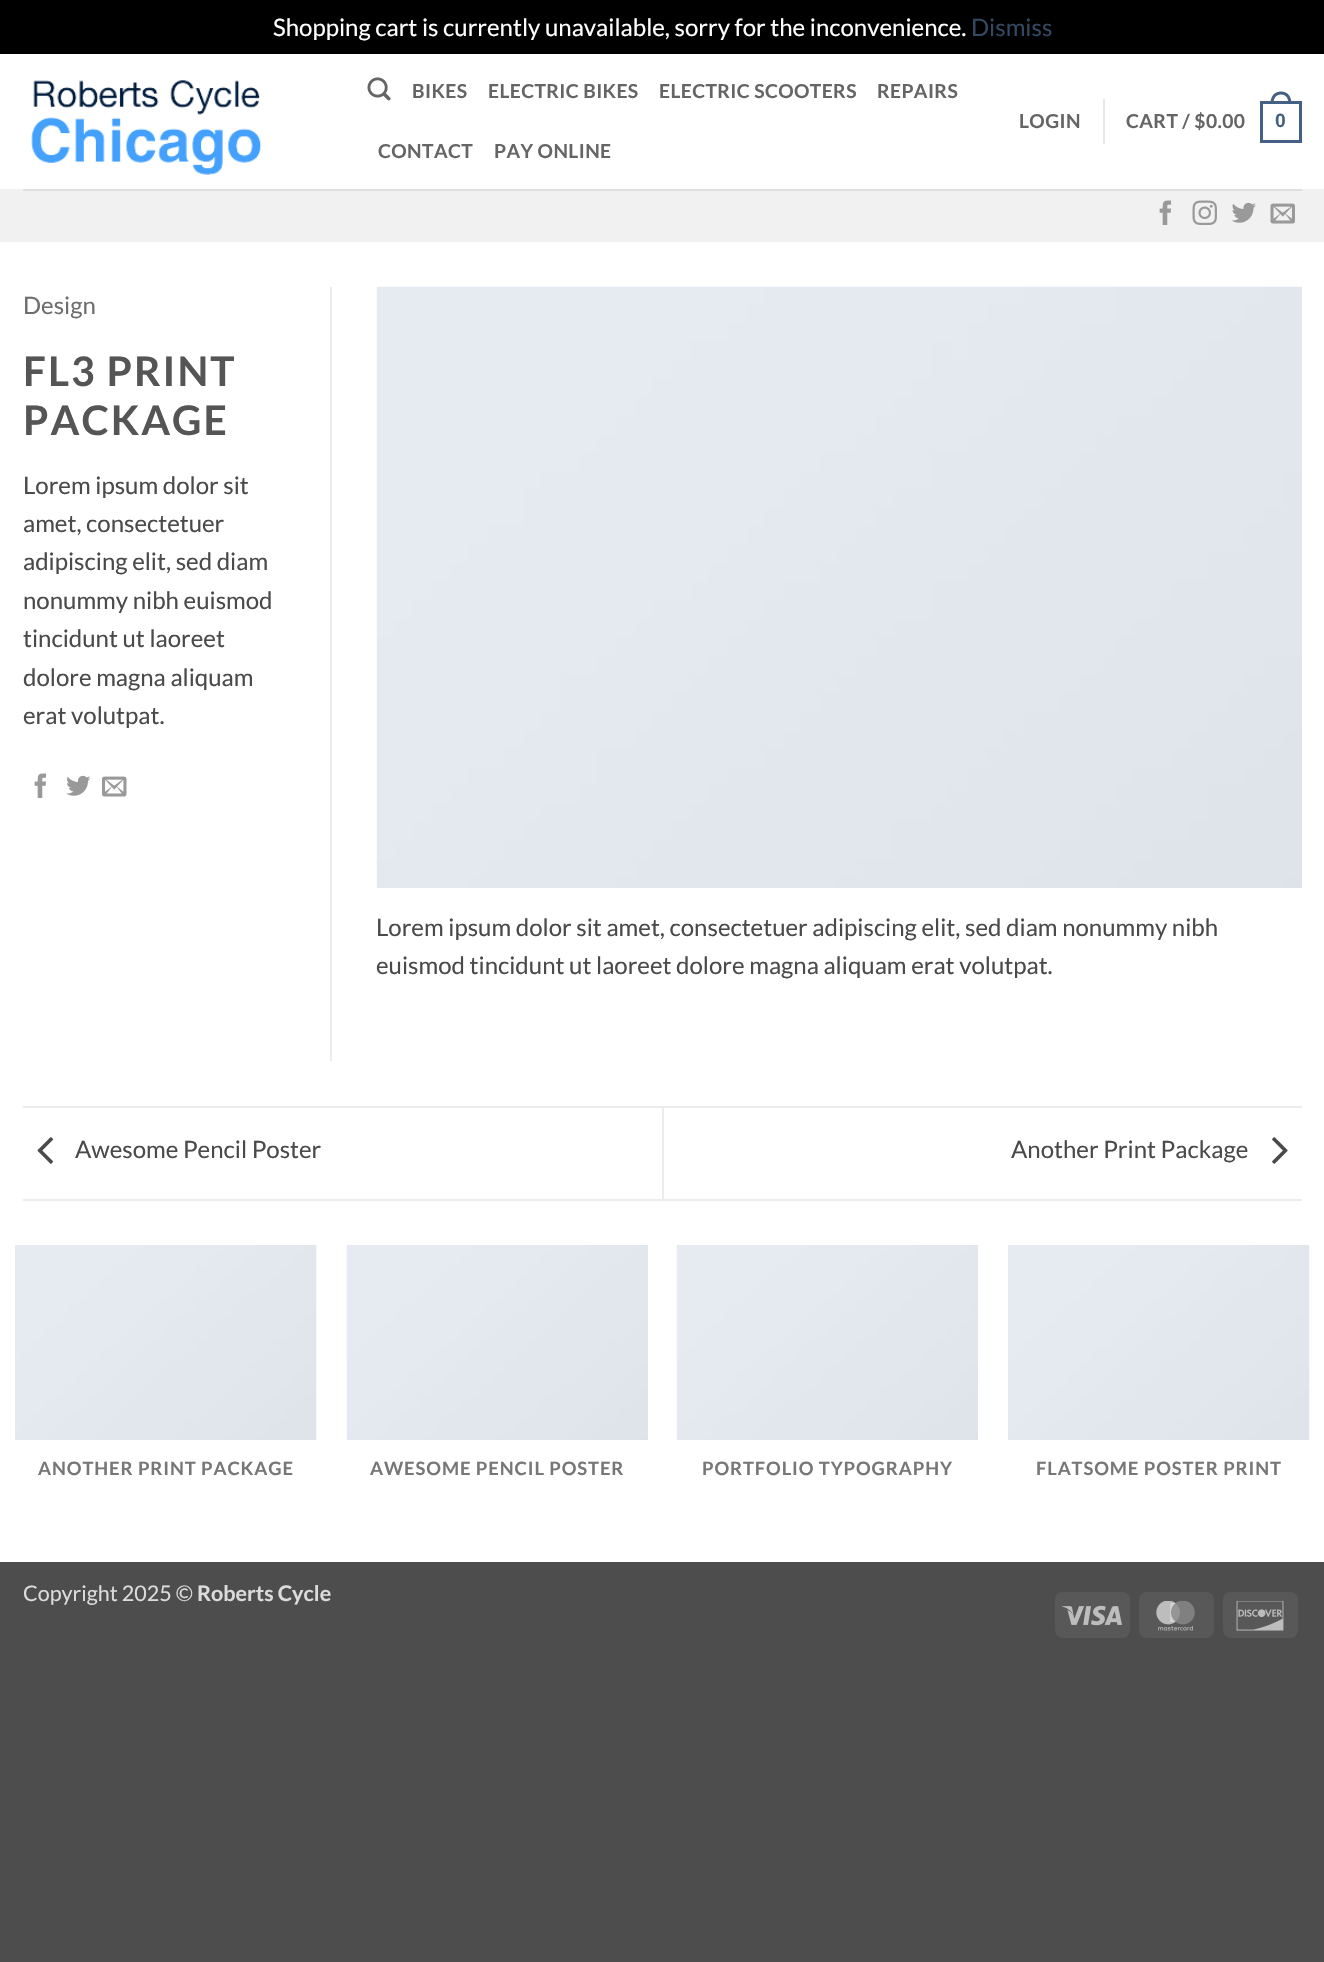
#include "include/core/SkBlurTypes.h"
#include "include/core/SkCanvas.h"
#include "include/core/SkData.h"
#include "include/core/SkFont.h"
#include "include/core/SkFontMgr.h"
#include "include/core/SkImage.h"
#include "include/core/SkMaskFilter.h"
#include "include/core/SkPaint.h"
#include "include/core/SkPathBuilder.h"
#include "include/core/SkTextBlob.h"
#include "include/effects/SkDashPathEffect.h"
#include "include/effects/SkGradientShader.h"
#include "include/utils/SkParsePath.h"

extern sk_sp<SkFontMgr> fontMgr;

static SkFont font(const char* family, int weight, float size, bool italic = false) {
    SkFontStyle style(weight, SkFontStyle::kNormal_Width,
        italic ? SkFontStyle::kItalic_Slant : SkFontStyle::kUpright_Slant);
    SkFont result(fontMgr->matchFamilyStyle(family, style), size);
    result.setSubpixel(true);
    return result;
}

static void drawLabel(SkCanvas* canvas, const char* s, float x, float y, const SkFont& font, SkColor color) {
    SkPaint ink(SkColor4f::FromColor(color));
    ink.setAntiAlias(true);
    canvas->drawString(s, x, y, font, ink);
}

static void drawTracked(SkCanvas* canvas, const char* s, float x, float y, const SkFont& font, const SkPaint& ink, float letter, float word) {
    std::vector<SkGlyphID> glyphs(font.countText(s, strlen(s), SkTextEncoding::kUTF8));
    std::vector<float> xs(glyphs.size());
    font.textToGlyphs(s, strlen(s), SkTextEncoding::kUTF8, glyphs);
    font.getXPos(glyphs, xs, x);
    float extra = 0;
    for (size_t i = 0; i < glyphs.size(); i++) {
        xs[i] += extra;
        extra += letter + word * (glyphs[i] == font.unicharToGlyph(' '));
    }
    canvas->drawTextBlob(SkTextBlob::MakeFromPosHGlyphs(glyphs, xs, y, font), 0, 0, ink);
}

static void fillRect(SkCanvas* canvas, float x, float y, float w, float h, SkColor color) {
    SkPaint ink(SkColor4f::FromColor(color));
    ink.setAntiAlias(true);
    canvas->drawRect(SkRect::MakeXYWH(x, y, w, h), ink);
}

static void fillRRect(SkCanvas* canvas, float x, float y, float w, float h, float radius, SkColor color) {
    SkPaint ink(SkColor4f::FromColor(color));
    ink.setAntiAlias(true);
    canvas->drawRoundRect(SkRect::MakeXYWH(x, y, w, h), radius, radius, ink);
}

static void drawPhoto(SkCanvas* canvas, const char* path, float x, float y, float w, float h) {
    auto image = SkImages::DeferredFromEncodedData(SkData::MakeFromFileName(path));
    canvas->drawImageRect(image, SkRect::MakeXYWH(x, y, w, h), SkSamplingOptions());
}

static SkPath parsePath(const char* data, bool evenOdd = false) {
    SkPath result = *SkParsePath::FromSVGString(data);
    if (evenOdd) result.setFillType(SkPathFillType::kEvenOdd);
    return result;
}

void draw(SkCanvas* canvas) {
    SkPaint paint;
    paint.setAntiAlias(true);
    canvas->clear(0xFF4D4D4D);
    fillRect(canvas, 0, 0, 1324, 54, 0xFF000000);
    SkFont font1 = font("Lato", 400, 24);
    drawLabel(canvas, "Shopping cart is currently unavailable, sorry for the inconvenience.", 273, 36, font1, 0xFFFFFFFF);
    drawLabel(canvas, "Dismiss", 971, 36, font1, 0xFF334862);
    fillRect(canvas, 0, 54, 1324, 1508, 0xFFFFFFFF);
    drawPhoto(canvas, "assets/img1.png", 31, 80, 231, 95);
    drawPhoto(canvas, "assets/img2.png", 367, 77, 24, 24);
    SkFont font2 = font("Lato", 700, 19.25f);
    paint.setColor(0xFF656565);
    drawTracked(canvas, "BIKES", 412, 98, font2, paint, 0.4f, 0);
    drawTracked(canvas, "ELECTRIC BIKES", 488, 98, font2, paint, 0.4f, 0);
    drawTracked(canvas, "ELECTRIC SCOOTERS", 659, 98, font2, paint, 0.4f, 0);
    drawTracked(canvas, "REPAIRS", 877, 98, font2, paint, 0.4f, 0);
    drawTracked(canvas, "CONTACT", 378, 158, font2, paint, 0.4f, 0);
    drawTracked(canvas, "PAY ONLINE", 494, 158, font2, paint, 0.4f, 0);
    drawTracked(canvas, "LOGIN", 1019, 128, font2, paint, 0.4f, 0);
    fillRect(canvas, 1103, 99, 2, 45, 0xFFE6E6E6);
    drawTracked(canvas, "CART / $0.00", 1126, 128, font2, paint, 0.4f, 0);
    paint.setStroke(true);
    paint.setStrokeWidth(3);
    paint.setColor(0xFF446084);
    canvas->drawRect(SkRect::MakeXYWH(1261.5f, 102.5f, 39, 39), paint);
    paint.setStroke(false);
    canvas->drawPath(parsePath("M1281 91.5C1288 91.5 1291.5 97 1291.5 103.5H1270.5C1270.5 97 1274 91.5 1281 91.5ZM1281 94.5C1286.5 94.5 1288.5 99 1288.5 103.5H1273.5C1273.5 99 1275.5 94.5 1281 94.5Z", true), paint);
    SkFont font3 = font("Liberation Sans", 700, 19.25f);
    drawTracked(canvas, "0", 1275, 127, font3, paint, 0.4f, 0);
    fillRect(canvas, 0, 189, 1324, 53, 0xFFF1F1F1);
    fillRect(canvas, 23, 189, 1279, 2, 0xFFE0E0E0);
    drawPhoto(canvas, "assets/img3.png", 1159, 200, 13, 25);
    drawPhoto(canvas, "assets/img4.png", 1192, 200, 25, 25);
    drawPhoto(canvas, "assets/img5.png", 1231, 202, 25, 21);
    drawPhoto(canvas, "assets/img6.png", 1270, 203, 25, 21);
    fillRect(canvas, 330, 287, 2, 774, 0xFFECECEC);
    drawLabel(canvas, "Design", 23, 314, font1, 0xFF6E6E6E);
    SkFont font4 = font("Lato", 700, 40.75f);
    paint.setColor(0xFF555555);
    drawTracked(canvas, "FL3 PRINT", 23, 386, font4, paint, 2, 0);
    drawTracked(canvas, "PACKAGE", 23, 435, font4, paint, 2, 0);
    drawLabel(canvas, "Lorem ipsum dolor sit", 23, 494, font1, 0xFF4A4A4A);
    drawLabel(canvas, "amet, consectetuer", 23, 532, font1, 0xFF4A4A4A);
    drawLabel(canvas, "adipiscing elit, sed diam", 23, 570, font1, 0xFF4A4A4A);
    drawLabel(canvas, "nonummy nibh euismod", 23, 609, font1, 0xFF4A4A4A);
    drawLabel(canvas, "tincidunt ut laoreet", 23, 647, font1, 0xFF4A4A4A);
    drawLabel(canvas, "dolore magna aliquam", 23, 686, font1, 0xFF4A4A4A);
    drawLabel(canvas, "erat volutpat.", 23, 724, font1, 0xFF4A4A4A);
    drawPhoto(canvas, "assets/img7.png", 34, 773, 13, 25);
    drawPhoto(canvas, "assets/img8.png", 66, 775, 25, 21);
    drawPhoto(canvas, "assets/img9.png", 102, 776, 25, 21);
    drawPhoto(canvas, "assets/img10.png", 376, 286, 926, 602);
    drawLabel(canvas, "Lorem ipsum dolor sit amet, consectetuer adipiscing elit, sed diam nonummy nibh", 376, 936, font1, 0xFF4A4A4A);
    drawLabel(canvas, "euismod tincidunt ut laoreet dolore magna aliquam erat volutpat.", 376, 974, font1, 0xFF4A4A4A);
    fillRect(canvas, 23, 1106, 1279, 2, 0xFFECECEC);
    fillRect(canvas, 23, 1199, 1279, 2, 0xFFECECEC);
    drawPhoto(canvas, "assets/img11.png", 37, 1137, 17, 27);
    drawLabel(canvas, "Awesome Pencil Poster", 75, 1158, font1, 0xFF4A4A4A);
    fillRect(canvas, 662, 1107, 2, 92, 0xFFECECEC);
    drawLabel(canvas, "Another Print Package", 1011, 1158, font1, 0xFF4A4A4A);
    drawPhoto(canvas, "assets/img12.png", 1272, 1137, 16, 27);
    drawPhoto(canvas, "assets/img13.png", 15, 1245, 302, 195);
    SkFont font5 = font("Lato", 700, 18.4f);
    paint.setColor(0xFF777777);
    drawTracked(canvas, "ANOTHER PRINT PACKAGE", 38, 1475, font5, paint, 0.9f, 0);
    drawPhoto(canvas, "assets/img14.png", 346, 1245, 302, 195);
    drawTracked(canvas, "AWESOME PENCIL POSTER", 370, 1475, font5, paint, 0.9f, 0);
    drawPhoto(canvas, "assets/img14.png", 676, 1245, 302, 195);
    drawTracked(canvas, "PORTFOLIO TYPOGRAPHY", 702, 1475, font5, paint, 0.9f, 0);
    drawPhoto(canvas, "assets/img13.png", 1008, 1245, 302, 195);
    drawTracked(canvas, "FLATSOME POSTER PRINT", 1036, 1475, font5, paint, 0.9f, 0);
    SkFont font6 = font("Lato", 400, 21.5f);
    drawLabel(canvas, "Copyright 2025 ©", 23, 1601, font6, 0xFFDBDBDB);
    SkFont font7 = font("Lato", 700, 21.5f);
    drawLabel(canvas, "Roberts Cycle", 197, 1601, font7, 0xFFDBDBDB);
    fillRRect(canvas, 1055, 1592, 75, 46, 8, 0xFF585858);
    drawPhoto(canvas, "assets/img15.png", 1062, 1605, 60, 21);
    fillRRect(canvas, 1139, 1592, 75, 46, 8, 0xFF585858);
    drawPhoto(canvas, "assets/img16.png", 1156, 1601, 39, 30);
    fillRRect(canvas, 1223, 1592, 75, 46, 8, 0xFF585858);
    drawPhoto(canvas, "assets/img17.png", 1236, 1601, 48, 30);
}
